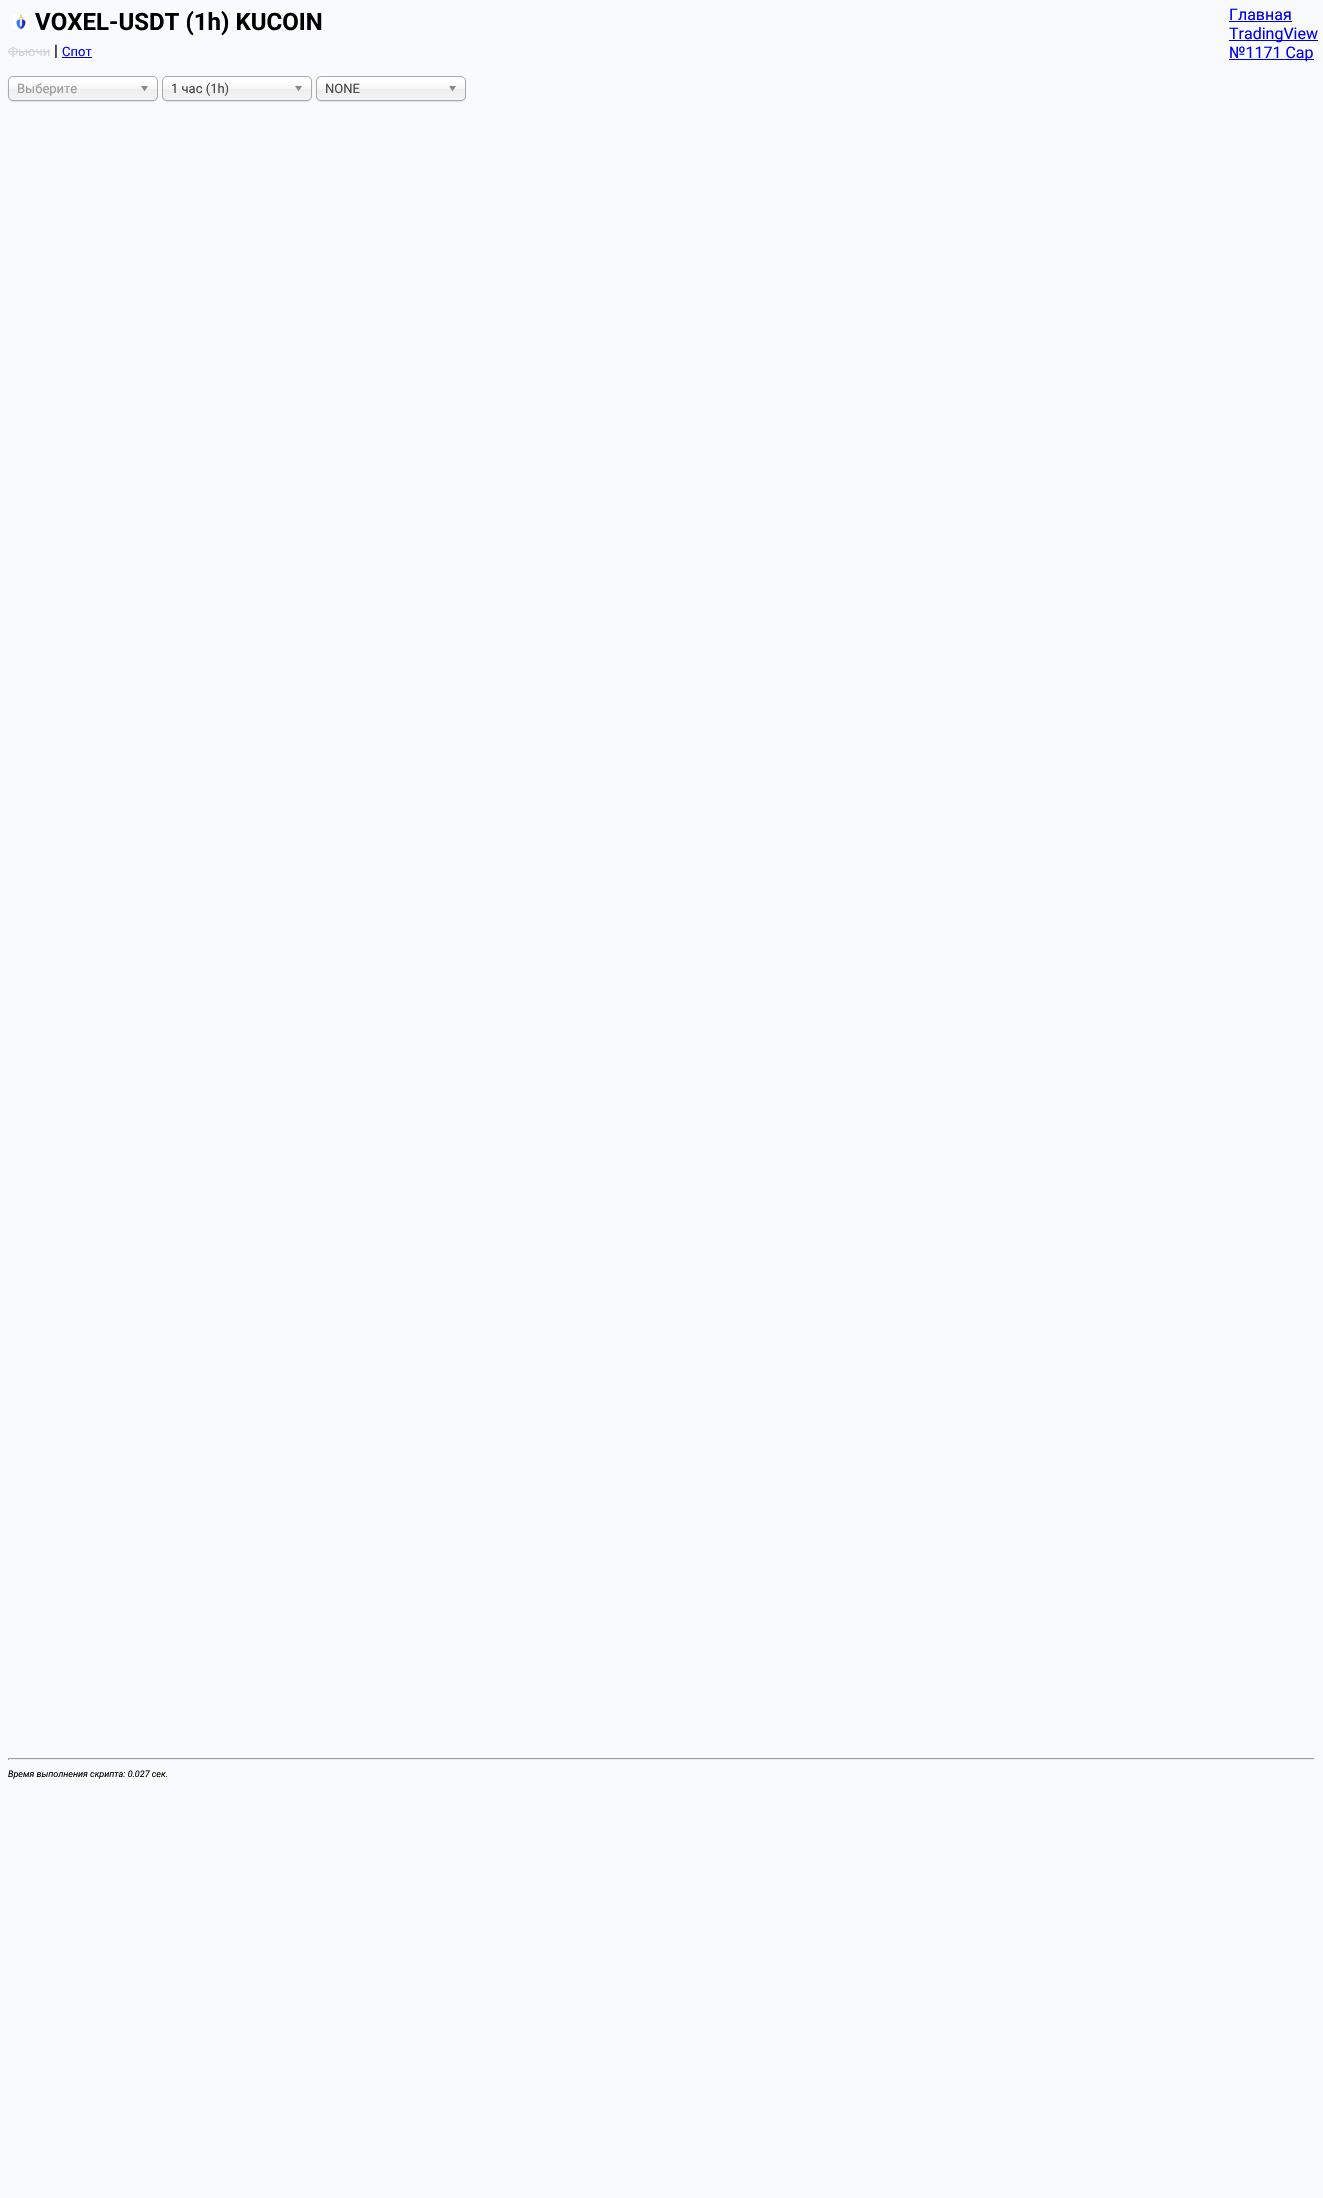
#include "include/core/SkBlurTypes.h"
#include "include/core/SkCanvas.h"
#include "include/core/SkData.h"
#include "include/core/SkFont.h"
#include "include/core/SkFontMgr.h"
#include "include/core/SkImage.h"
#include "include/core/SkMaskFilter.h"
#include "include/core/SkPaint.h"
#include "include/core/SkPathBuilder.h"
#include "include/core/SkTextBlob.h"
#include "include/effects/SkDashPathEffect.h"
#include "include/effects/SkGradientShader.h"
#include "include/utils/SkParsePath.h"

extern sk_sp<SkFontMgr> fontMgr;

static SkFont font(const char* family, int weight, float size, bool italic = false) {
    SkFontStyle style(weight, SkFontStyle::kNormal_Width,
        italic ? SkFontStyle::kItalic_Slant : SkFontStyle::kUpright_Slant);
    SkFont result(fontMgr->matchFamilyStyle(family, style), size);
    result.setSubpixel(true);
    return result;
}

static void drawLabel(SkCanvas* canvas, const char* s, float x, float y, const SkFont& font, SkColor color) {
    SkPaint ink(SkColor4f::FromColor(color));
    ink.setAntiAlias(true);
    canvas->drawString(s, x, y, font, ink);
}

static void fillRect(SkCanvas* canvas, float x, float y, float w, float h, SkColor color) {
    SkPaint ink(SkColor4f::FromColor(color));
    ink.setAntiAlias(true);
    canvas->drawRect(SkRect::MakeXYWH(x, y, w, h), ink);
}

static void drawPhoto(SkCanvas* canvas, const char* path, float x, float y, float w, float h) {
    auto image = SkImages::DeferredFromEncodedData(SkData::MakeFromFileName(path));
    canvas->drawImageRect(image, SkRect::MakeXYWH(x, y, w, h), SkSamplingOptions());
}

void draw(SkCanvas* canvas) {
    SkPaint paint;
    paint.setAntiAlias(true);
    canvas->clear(0xFFF9FAFB);
    drawPhoto(canvas, "assets/img1.png", 13, 14, 16, 16);
    SkFont font1 = font("Roboto", 700, 24);
    drawLabel(canvas, "VOXEL-USDT (1h) KUCOIN", 35, 30, font1, 0xFF000000);
    SkFont font2 = font("Roboto", 400, 16);
    drawLabel(canvas, "Главная", 1229, 20, font2, 0xFF0000EE);
    fillRect(canvas, 1229, 21, 63, 1, 0xFF0000EE);
    fillRect(canvas, 1229, 40, 89, 1, 0xFF0000EE);
    drawLabel(canvas, "TradingView", 1229, 39, font2, 0xFF0000EE);
    fillRect(canvas, 1229, 59, 85, 1, 0xFF0000EE);
    drawLabel(canvas, "№1171 Cap", 1229, 58, font2, 0xFF0000EE);
    SkFont font3 = font("Roboto", 400, 13);
    drawLabel(canvas, "Фьючи", 8, 56, font3, 0xFFD3D3D3);
    fillRect(canvas, 8, 51, 42, 1, 0xFFD3D3D3);
    drawLabel(canvas, "|", 54, 56, font2, 0xFF000000);
    drawLabel(canvas, "Спот", 62, 56, font3, 0xFF0000EE);
    fillRect(canvas, 62, 57, 30, 1, 0xFF0000EE);
    paint.setColor(0x1A000000);
    paint.setMaskFilter(SkMaskFilter::MakeBlur(kNormal_SkBlurStyle, 0.5f));
    canvas->drawRoundRect(SkRect::MakeXYWH(8, 77, 150, 25), 5, 5, paint);
    paint.setMaskFilter(nullptr);
    {
        const SkColor colors[] = {0xFFFFFFFF, 0xFFF6F6F6, 0xFFEEEEEE, 0xFFF4F4F4};
        const float stops[] = {0.2f, 0.5f, 0.52f, 1};
        const SkPoint ends[] = {{83, 77}, {83, 100}};
        paint.setShader(SkGradientShader::MakeLinear(ends, colors, stops, 4, SkTileMode::kClamp));
        paint.setAlpha(255);
    }
    canvas->drawRoundRect(SkRect::MakeXYWH(9, 77, 148, 23), 4, 4, paint);
    paint.setStroke(true);
    paint.setStrokeWidth(1);
    paint.setShader(nullptr);
    paint.setColor(0xFFAAAAAA);
    canvas->drawRoundRect(SkRect::MakeXYWH(8.5f, 76.5f, 149, 24), 4.5f, 4.5f, paint);
    drawLabel(canvas, "Выберите", 17, 93, font3, 0xFF999999);
    drawPhoto(canvas, "assets/img2.png", 141, 86, 7, 6);
    paint.setStroke(false);
    paint.setColor(0x1A000000);
    paint.setMaskFilter(SkMaskFilter::MakeBlur(kNormal_SkBlurStyle, 0.5f));
    canvas->drawRoundRect(SkRect::MakeXYWH(162, 77, 150, 25), 5, 5, paint);
    paint.setMaskFilter(nullptr);
    {
        const SkColor colors[] = {0xFFFFFFFF, 0xFFF6F6F6, 0xFFEEEEEE, 0xFFF4F4F4};
        const float stops[] = {0.2f, 0.5f, 0.52f, 1};
        const SkPoint ends[] = {{237, 77}, {237, 100}};
        paint.setShader(SkGradientShader::MakeLinear(ends, colors, stops, 4, SkTileMode::kClamp));
        paint.setAlpha(255);
    }
    canvas->drawRoundRect(SkRect::MakeXYWH(163, 77, 148, 23), 4, 4, paint);
    paint.setStroke(true);
    paint.setShader(nullptr);
    paint.setColor(0xFFAAAAAA);
    canvas->drawRoundRect(SkRect::MakeXYWH(162.5f, 76.5f, 149, 24), 4.5f, 4.5f, paint);
    drawLabel(canvas, "1 час (1h)", 171, 93, font3, 0xFF444444);
    drawPhoto(canvas, "assets/img2.png", 295, 86, 7, 6);
    paint.setStroke(false);
    paint.setColor(0x1A000000);
    paint.setMaskFilter(SkMaskFilter::MakeBlur(kNormal_SkBlurStyle, 0.5f));
    canvas->drawRoundRect(SkRect::MakeXYWH(316, 77, 150, 25), 5, 5, paint);
    paint.setMaskFilter(nullptr);
    {
        const SkColor colors[] = {0xFFFFFFFF, 0xFFF6F6F6, 0xFFEEEEEE, 0xFFF4F4F4};
        const float stops[] = {0.2f, 0.5f, 0.52f, 1};
        const SkPoint ends[] = {{391, 77}, {391, 100}};
        paint.setShader(SkGradientShader::MakeLinear(ends, colors, stops, 4, SkTileMode::kClamp));
        paint.setAlpha(255);
    }
    canvas->drawRoundRect(SkRect::MakeXYWH(317, 77, 148, 23), 4, 4, paint);
    paint.setStroke(true);
    paint.setShader(nullptr);
    paint.setColor(0xFFAAAAAA);
    canvas->drawRoundRect(SkRect::MakeXYWH(316.5f, 76.5f, 149, 24), 4.5f, 4.5f, paint);
    drawLabel(canvas, "NONE", 325, 93, font3, 0xFF444444);
    drawPhoto(canvas, "assets/img2.png", 449, 86, 7, 6);
    fillRect(canvas, 8, 1758, 1307, 1, 0xFF9F9F9F);
    fillRect(canvas, 1314, 1758, 1, 2, 0xFFEEEEEE);
    fillRect(canvas, 8, 1759, 1307, 1, 0xFFEEEEEE);
    fillRect(canvas, 8, 1758, 1, 2, 0xFF9F9F9F);
    SkFont font4 = font("Roboto", 400, 9, true);
    drawLabel(canvas, "Время выполнения скрипта: 0.027 сек.", 8, 1777, font4, 0xFF000000);
}
